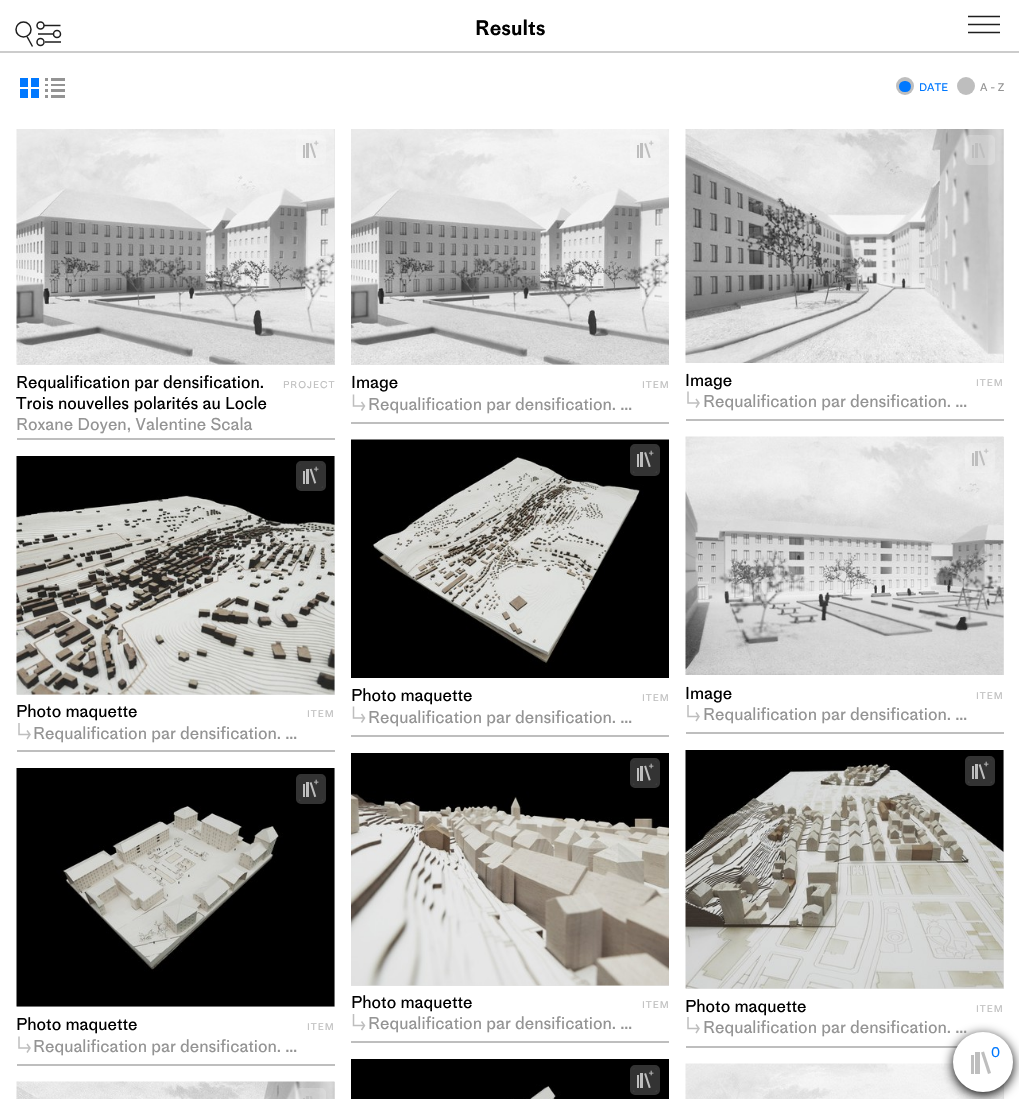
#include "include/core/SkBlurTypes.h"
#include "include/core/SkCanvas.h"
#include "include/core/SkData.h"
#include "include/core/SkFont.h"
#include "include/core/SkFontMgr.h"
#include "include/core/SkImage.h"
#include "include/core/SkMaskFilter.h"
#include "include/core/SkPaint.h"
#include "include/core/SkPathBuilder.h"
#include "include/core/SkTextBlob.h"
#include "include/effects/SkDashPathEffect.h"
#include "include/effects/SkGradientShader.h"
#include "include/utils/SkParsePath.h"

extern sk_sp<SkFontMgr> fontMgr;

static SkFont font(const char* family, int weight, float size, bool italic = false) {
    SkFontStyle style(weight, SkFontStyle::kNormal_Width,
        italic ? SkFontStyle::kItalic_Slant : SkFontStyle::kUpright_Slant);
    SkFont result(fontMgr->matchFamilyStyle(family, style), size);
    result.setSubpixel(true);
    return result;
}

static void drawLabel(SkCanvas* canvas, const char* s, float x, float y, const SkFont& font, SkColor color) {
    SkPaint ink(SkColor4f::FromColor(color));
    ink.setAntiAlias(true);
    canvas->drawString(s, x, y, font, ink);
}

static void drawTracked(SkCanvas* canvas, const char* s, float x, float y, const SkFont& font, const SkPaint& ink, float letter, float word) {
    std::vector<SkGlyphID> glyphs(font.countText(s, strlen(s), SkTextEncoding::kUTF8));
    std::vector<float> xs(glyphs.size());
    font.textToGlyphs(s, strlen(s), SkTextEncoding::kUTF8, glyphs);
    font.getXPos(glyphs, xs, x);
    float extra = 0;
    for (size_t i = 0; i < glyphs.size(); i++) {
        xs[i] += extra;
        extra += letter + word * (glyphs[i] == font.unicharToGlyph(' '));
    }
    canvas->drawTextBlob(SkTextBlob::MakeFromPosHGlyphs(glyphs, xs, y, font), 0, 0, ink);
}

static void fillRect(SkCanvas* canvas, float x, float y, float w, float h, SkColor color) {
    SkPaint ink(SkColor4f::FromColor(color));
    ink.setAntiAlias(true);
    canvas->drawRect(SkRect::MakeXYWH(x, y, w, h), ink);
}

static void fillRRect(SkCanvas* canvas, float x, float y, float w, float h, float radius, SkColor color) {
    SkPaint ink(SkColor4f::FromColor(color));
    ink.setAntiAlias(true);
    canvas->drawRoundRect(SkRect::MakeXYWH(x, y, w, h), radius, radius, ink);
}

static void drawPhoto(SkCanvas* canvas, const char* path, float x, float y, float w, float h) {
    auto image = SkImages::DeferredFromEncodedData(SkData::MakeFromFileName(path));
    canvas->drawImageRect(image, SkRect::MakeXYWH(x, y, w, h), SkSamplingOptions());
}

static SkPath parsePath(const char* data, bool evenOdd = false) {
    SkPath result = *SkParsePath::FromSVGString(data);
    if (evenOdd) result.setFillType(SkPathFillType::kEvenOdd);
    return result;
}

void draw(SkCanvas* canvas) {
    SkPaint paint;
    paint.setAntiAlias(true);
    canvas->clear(0xFFFFFFFF);
    fillRect(canvas, 0, 51, 1019, 2, 0xFFCCCCCC);
    paint.setStroke(true);
    paint.setStrokeWidth(1.5f);
    paint.setStrokeJoin(SkPaint::kBevel_Join);
    paint.setColor(0xFF1E1E1E);
    canvas->drawPath(parsePath("M32.5 46.5L27 36.5"), paint);
    paint.setStrokeJoin(SkPaint::kMiter_Join);
    canvas->drawCircle(23.5f, 29.5f, 7.5f, paint);
    fillRect(canvas, 38, 33, 16, 2, 0xFF565656);
    canvas->drawCircle(57, 34, 3.5f, paint);
    fillRect(canvas, 45, 41, 16, 2, 0xFF565656);
    canvas->drawCircle(40.5f, 42, 3.5f, paint);
    canvas->drawPath(parsePath("M60.5 25.5H44"), paint);
    canvas->drawCircle(40.5f, 25.5f, 3.5f, paint);
    SkFont font1 = font("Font", 600, 21);
    drawLabel(canvas, "Results", 475, 35, font1, 0xFF000000);
    canvas->drawPath(parsePath("M968 16.5H1000M968 24.5H1000M968 32.5H1000"), paint);
    fillRect(canvas, 686, 1046, 276, 2, 0xFFBEBEBE);
    fillRect(canvas, 1003, 1079, 1, 20, 0xFFE5E5E5);
    drawPhoto(canvas, "assets/img20.png", 685, 1063, 319, 36);
    fillRRect(canvas, 968, 1071, 24, 24, 1.5f, 0x33FFFFFF);
    paint.setStrokeWidth(3);
    paint.setColor(0x33FFFFFF);
    canvas->drawRoundRect(SkRect::MakeXYWH(966.5f, 1069.5f, 27, 27), 3.5f, 3.5f, paint);
    drawPhoto(canvas, "assets/img21.png", 972, 1086, 13, 5);
    paint.setStroke(false);
    paint.setColor(0xFF000000);
    paint.setMaskFilter(SkMaskFilter::MakeBlur(kNormal_SkBlurStyle, 6));
    canvas->drawRoundRect(SkRect::MakeXYWH(953, 1035, 60, 60), 30, 30, paint);
    paint.setMaskFilter(nullptr);
    SkFont font2 = font("Font", 400, 17.25f);
    drawLabel(canvas, "Requalification par densification. …", 703, 1033, font2, 0xFF949494);
    paint.setColor(0xFFFFFFFF);
    canvas->drawCircle(983, 1062, 28.5f, paint);
    paint.setStroke(true);
    canvas->drawCircle(983, 1062, 28.5f, paint);
    fillRect(canvas, 975, 1052, 5, 22, 0xFFBEBEBE);
    paint.setStroke(false);
    paint.setColor(0xFFBEBEBE);
    canvas->drawPath(parsePath("M981 1052.5L984 1051.5L991 1073L988 1074Z"), paint);
    fillRect(canvas, 971, 1055, 3, 19, 0xFFBEBEBE);
    SkFont font3 = font("Font", 400, 14);
    drawLabel(canvas, "0", 991, 1057, font3, 0xFF0078FF);
    fillRect(canvas, 20, 78, 8, 9, 0xFF0078FF);
    fillRect(canvas, 31, 78, 8, 9, 0xFF0078FF);
    fillRect(canvas, 20, 89, 8, 9, 0xFF0078FF);
    fillRect(canvas, 31, 89, 8, 9, 0xFF0078FF);
    drawPhoto(canvas, "assets/img1.png", 45, 78, 20, 20);
    canvas->drawCircle(905, 86, 9, paint);
    fillRRect(canvas, 899, 81, 12, 11, 5.5f, 0xFF0078FF);
    SkFont font4 = font("Font", 400, 11);
    drawLabel(canvas, "DATE", 919, 91, font4, 0xFF0078FF);
    canvas->drawCircle(966, 86, 9, paint);
    drawLabel(canvas, "A - Z", 980, 91, font4, 0xFF949494);
    fillRect(canvas, 17, 438, 318, 2, 0xFFBEBEBE);
    fillRect(canvas, 17, 129, 318, 236, 0xFFE5E5E5);
    drawPhoto(canvas, "assets/img2.png", 16, 129, 319, 236);
    fillRRect(canvas, 299, 138, 24, 24, 1.5f, 0x33FFFFFF);
    paint.setStroke(true);
    paint.setColor(0x33FFFFFF);
    canvas->drawRoundRect(SkRect::MakeXYWH(297.5f, 136.5f, 27, 27), 3.5f, 3.5f, paint);
    drawPhoto(canvas, "assets/img3.png", 303, 143, 13, 15);
    SkFont font5 = font("Font", 400, 10);
    drawLabel(canvas, "+", 313, 146, font5, 0xFFBEBEBE);
    drawLabel(canvas, "Requalification par densification.", 16, 388, font2, 0xFF000000);
    drawLabel(canvas, "Trois nouvelles polarités au Locle", 16, 409, font2, 0xFF000000);
    SkFont font6 = font("Font", 400, 9.75f);
    paint.setStroke(false);
    paint.setColor(0xFFBEBEBE);
    drawTracked(canvas, "PROJECT", 283, 388, font6, paint, 1, 0);
    drawLabel(canvas, "Roxane Doyen, Valentine Scala", 16, 430, font2, 0xFF949494);
    fillRect(canvas, 351, 422, 318, 2, 0xFFBEBEBE);
    fillRect(canvas, 351, 364, 318, 1, 0xFFE5E5E5);
    drawPhoto(canvas, "assets/img4.png", 351, 129, 318, 236);
    fillRRect(canvas, 633, 138, 24, 24, 1.5f, 0x33FFFFFF);
    paint.setStroke(true);
    paint.setColor(0x33FFFFFF);
    canvas->drawRoundRect(SkRect::MakeXYWH(631.5f, 136.5f, 27, 27), 3.5f, 3.5f, paint);
    drawPhoto(canvas, "assets/img5.png", 637, 143, 14, 15);
    drawLabel(canvas, "+", 648, 146, font5, 0xFFBEBEBE);
    drawLabel(canvas, "Image", 351, 388, font2, 0xFF000000);
    paint.setStroke(false);
    paint.setColor(0xFFBEBEBE);
    drawTracked(canvas, "ITEM", 642, 388, font6, paint, 1, 0);
    paint.setStroke(true);
    paint.setStrokeWidth(1.5f);
    canvas->drawPath(parsePath("M353.5 394.5V406H363.5M361.5 402L364.5 406L361.5 410.5"), paint);
    drawLabel(canvas, "Requalification par densification. …", 368, 410, font2, 0xFF949494);
    fillRect(canvas, 686, 419, 318, 2, 0xFFBEBEBE);
    fillRect(canvas, 1003, 129, 1, 234, 0xFFE5E5E5);
    drawPhoto(canvas, "assets/img6.png", 685, 129, 319, 234);
    fillRRect(canvas, 968, 138, 24, 24, 1.5f, 0x33FFFFFF);
    paint.setStrokeWidth(3);
    paint.setColor(0x33FFFFFF);
    canvas->drawRoundRect(SkRect::MakeXYWH(966.5f, 136.5f, 27, 27), 3.5f, 3.5f, paint);
    drawPhoto(canvas, "assets/img7.png", 972, 143, 13, 15);
    drawLabel(canvas, "Image", 685, 386, font2, 0xFF000000);
    paint.setStroke(false);
    paint.setColor(0xFFBEBEBE);
    drawTracked(canvas, "ITEM", 976, 386, font6, paint, 1, 0);
    paint.setStroke(true);
    paint.setStrokeWidth(1.5f);
    canvas->drawPath(parsePath("M688 391.5V403H698M696 399L699 403L696 407.5"), paint);
    drawLabel(canvas, "Requalification par densification. …", 703, 407, font2, 0xFF949494);
    fillRect(canvas, 17, 750, 318, 2, 0xFFBEBEBE);
    fillRect(canvas, 17, 456, 318, 239, 0xFFE5E5E5);
    drawPhoto(canvas, "assets/img8.png", 16, 456, 319, 239);
    fillRRect(canvas, 299, 464, 24, 24, 1.5f, 0xFF333333);
    paint.setStrokeWidth(3);
    paint.setColor(0x33FFFFFF);
    canvas->drawRoundRect(SkRect::MakeXYWH(297.5f, 462.5f, 27, 27), 3.5f, 3.5f, paint);
    drawPhoto(canvas, "assets/img9.png", 303, 468, 14, 16);
    drawLabel(canvas, "+", 313, 472, font5, 0xFFBEBEBE);
    drawLabel(canvas, "Photo maquette", 16, 717, font2, 0xFF000000);
    paint.setStroke(false);
    paint.setColor(0xFFBEBEBE);
    drawTracked(canvas, "ITEM", 307, 717, font6, paint, 1, 0);
    paint.setStroke(true);
    paint.setStrokeWidth(1.5f);
    canvas->drawPath(parsePath("M19 723V734.5H29M27 730.5L30 734.5L27 739"), paint);
    drawLabel(canvas, "Requalification par densification. …", 33, 739, font2, 0xFF949494);
    fillRect(canvas, 351, 735, 318, 2, 0xFFBEBEBE);
    drawPhoto(canvas, "assets/img10.png", 351, 439, 318, 239);
    fillRRect(canvas, 633, 447, 24, 26, 1.5f, 0xFF333333);
    paint.setStrokeWidth(3);
    paint.setColor(0x33FFFFFF);
    canvas->drawRoundRect(SkRect::MakeXYWH(631.5f, 445.5f, 27, 29), 3.5f, 3.5f, paint);
    drawPhoto(canvas, "assets/img11.png", 637, 452, 14, 15);
    drawLabel(canvas, "+", 648, 456, font5, 0xFFBEBEBE);
    drawLabel(canvas, "Photo maquette", 351, 701, font2, 0xFF000000);
    paint.setStroke(false);
    paint.setColor(0xFFBEBEBE);
    drawTracked(canvas, "ITEM", 642, 701, font6, paint, 1, 0);
    paint.setStroke(true);
    paint.setStrokeWidth(1.5f);
    canvas->drawPath(parsePath("M353.5 706.5V718H363.5M361.5 714L364.5 718L361.5 722.5"), paint);
    drawLabel(canvas, "Requalification par densification. …", 368, 723, font2, 0xFF949494);
    fillRect(canvas, 686, 732, 318, 2, 0xFFBEBEBE);
    fillRect(canvas, 1003, 437, 1, 238, 0xFFE5E5E5);
    drawPhoto(canvas, "assets/img12.png", 685, 436, 319, 239);
    fillRRect(canvas, 968, 446, 24, 24, 1.5f, 0x33FFFFFF);
    paint.setStrokeWidth(3);
    paint.setColor(0x33FFFFFF);
    canvas->drawRoundRect(SkRect::MakeXYWH(966.5f, 444.5f, 27, 27), 3.5f, 3.5f, paint);
    drawPhoto(canvas, "assets/img13.png", 972, 450, 13, 16);
    drawLabel(canvas, "+", 983, 454, font5, 0xFFBEBEBE);
    drawLabel(canvas, "Image", 685, 699, font2, 0xFF000000);
    paint.setStroke(false);
    paint.setColor(0xFFBEBEBE);
    drawTracked(canvas, "ITEM", 976, 699, font6, paint, 1, 0);
    paint.setStroke(true);
    paint.setStrokeWidth(1.5f);
    canvas->drawPath(parsePath("M688 705V716.5H698M696 712.5L699 716.5L696 721"), paint);
    drawLabel(canvas, "Requalification par densification. …", 703, 720, font2, 0xFF949494);
    fillRect(canvas, 17, 1064, 318, 2, 0xFFBEBEBE);
    fillRect(canvas, 17, 768, 318, 239, 0xFFE5E5E5);
    drawPhoto(canvas, "assets/img14.png", 16, 768, 319, 239);
    fillRRect(canvas, 299, 777, 24, 24, 1.5f, 0xFF333333);
    paint.setStrokeWidth(3);
    paint.setColor(0x33FFFFFF);
    canvas->drawRoundRect(SkRect::MakeXYWH(297.5f, 775.5f, 27, 27), 3.5f, 3.5f, paint);
    drawPhoto(canvas, "assets/img15.png", 303, 782, 14, 16);
    drawLabel(canvas, "+", 313, 785, font5, 0xFFBEBEBE);
    drawLabel(canvas, "Photo maquette", 16, 1030, font2, 0xFF000000);
    paint.setStroke(false);
    paint.setColor(0xFFBEBEBE);
    drawTracked(canvas, "ITEM", 307, 1030, font6, paint, 1, 0);
    paint.setStroke(true);
    paint.setStrokeWidth(1.5f);
    canvas->drawPath(parsePath("M19 1036.5V1048H29M27 1044L30 1048L27 1052.5"), paint);
    drawLabel(canvas, "Requalification par densification. …", 33, 1052, font2, 0xFF949494);
    fillRect(canvas, 351, 1041, 318, 2, 0xFFBEBEBE);
    fillRect(canvas, 351, 985, 318, 1, 0xFFE5E5E5);
    drawPhoto(canvas, "assets/img16.png", 351, 753, 318, 233);
    fillRRect(canvas, 633, 761, 24, 24, 1.5f, 0xFF333333);
    paint.setStrokeWidth(3);
    paint.setColor(0x33FFFFFF);
    canvas->drawRoundRect(SkRect::MakeXYWH(631.5f, 759.5f, 27, 27), 3.5f, 3.5f, paint);
    drawPhoto(canvas, "assets/img17.png", 637, 765, 14, 16);
    drawLabel(canvas, "+", 648, 769, font5, 0xFFBEBEBE);
    drawLabel(canvas, "Photo maquette", 351, 1008, font2, 0xFF000000);
    paint.setStroke(false);
    paint.setColor(0xFFBEBEBE);
    drawTracked(canvas, "ITEM", 642, 1008, font6, paint, 1, 0);
    paint.setStroke(true);
    paint.setStrokeWidth(1.5f);
    canvas->drawPath(parsePath("M353.5 1014V1025.5H363.5M361.5 1021.5L364.5 1025.5L361.5 1030"), paint);
    drawLabel(canvas, "Requalification par densification. …", 368, 1029, font2, 0xFF949494);
    fillRect(canvas, 686, 750, 318, 239, 0xFFE5E5E5);
    drawPhoto(canvas, "assets/img18.png", 685, 750, 319, 239);
    fillRRect(canvas, 968, 759, 24, 24, 1.5f, 0xFF333333);
    paint.setStrokeWidth(3);
    paint.setColor(0x33FFFFFF);
    canvas->drawRoundRect(SkRect::MakeXYWH(966.5f, 757.5f, 27, 27), 3.5f, 3.5f, paint);
    drawPhoto(canvas, "assets/img15.png", 972, 764, 14, 16);
    drawLabel(canvas, "+", 983, 767, font5, 0xFFBEBEBE);
    drawLabel(canvas, "Photo maquette", 685, 1012, font2, 0xFF000000);
    paint.setStroke(false);
    paint.setColor(0xFFBEBEBE);
    drawTracked(canvas, "ITEM", 976, 1012, font6, paint, 1, 0);
    paint.setStroke(true);
    paint.setStrokeWidth(1.5f);
    canvas->drawPath(parsePath("M688 1017V1028.5H698M696 1024.5L699 1028.5L696 1033"), paint);
    drawPhoto(canvas, "assets/img19.png", 351, 1059, 318, 40);
    fillRRect(canvas, 633, 1068, 24, 24, 1.5f, 0xFF333333);
    paint.setStrokeWidth(3);
    paint.setColor(0x33FFFFFF);
    canvas->drawRoundRect(SkRect::MakeXYWH(631.5f, 1066.5f, 27, 27), 3.5f, 3.5f, paint);
    drawPhoto(canvas, "assets/img11.png", 637, 1073, 14, 15);
    drawLabel(canvas, "+", 648, 1076, font5, 0xFFBEBEBE);
    fillRect(canvas, 334, 1082, 1, 17, 0xFFE5E5E5);
    drawPhoto(canvas, "assets/img22.png", 16, 1081, 319, 18);
    fillRRect(canvas, 299, 1091, 24, 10, 1.5f, 0x33FFFFFF);
    canvas->drawRoundRect(SkRect::MakeXYWH(297.5f, 1089.5f, 27, 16), 3.5f, 3.5f, paint);
    drawPhoto(canvas, "assets/img23.png", 303, 1096, 10, 3);
}
